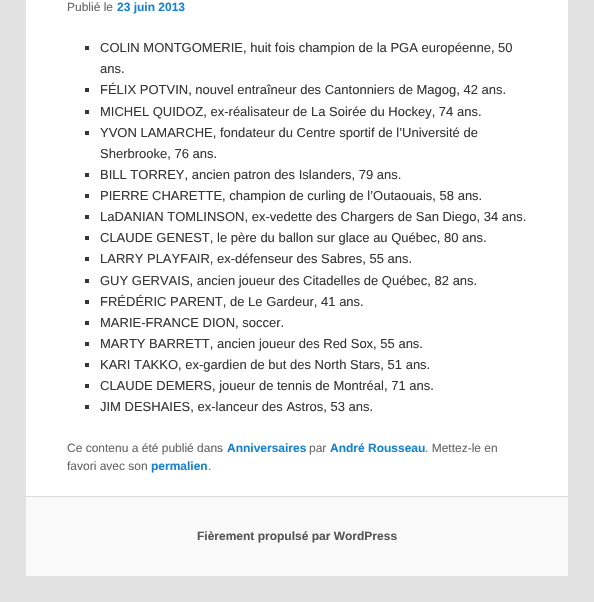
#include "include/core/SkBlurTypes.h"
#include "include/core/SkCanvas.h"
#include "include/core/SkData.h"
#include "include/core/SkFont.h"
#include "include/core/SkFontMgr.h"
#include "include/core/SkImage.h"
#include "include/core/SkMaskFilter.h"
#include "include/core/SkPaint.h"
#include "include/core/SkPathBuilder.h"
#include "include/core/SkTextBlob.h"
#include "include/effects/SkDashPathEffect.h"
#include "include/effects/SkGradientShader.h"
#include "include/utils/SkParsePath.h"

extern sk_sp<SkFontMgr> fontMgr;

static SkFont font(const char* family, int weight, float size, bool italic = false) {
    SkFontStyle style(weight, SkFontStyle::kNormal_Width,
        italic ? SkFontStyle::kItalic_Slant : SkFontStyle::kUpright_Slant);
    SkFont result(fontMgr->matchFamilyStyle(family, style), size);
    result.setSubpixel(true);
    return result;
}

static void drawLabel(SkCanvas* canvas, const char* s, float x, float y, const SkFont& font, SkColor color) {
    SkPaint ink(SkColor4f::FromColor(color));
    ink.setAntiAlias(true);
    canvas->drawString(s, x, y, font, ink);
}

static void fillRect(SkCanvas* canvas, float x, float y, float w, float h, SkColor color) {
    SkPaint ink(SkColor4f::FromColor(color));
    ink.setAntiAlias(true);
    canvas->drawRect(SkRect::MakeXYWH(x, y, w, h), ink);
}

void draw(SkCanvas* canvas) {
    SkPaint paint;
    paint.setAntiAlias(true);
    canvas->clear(0xFFE2E2E2);
    fillRect(canvas, 26, 0, 542, 496, 0xFFFFFFFF);
    SkFont font1 = font("Liberation Sans", 400, 12);
    drawLabel(canvas, "Publié le", 67, 11, font1, 0xFF666666);
    SkFont font2 = font("Liberation Sans", 700, 12);
    drawLabel(canvas, "23 juin 2013", 117, 11, font2, 0xFF1982D1);
    fillRect(canvas, 85, 46, 4, 4, 0xFF373737);
    SkFont font3 = font("Liberation Sans", 400, 13);
    drawLabel(canvas, "COLIN MONTGOMERIE, huit fois champion de la PGA européenne, 50", 100, 52, font3, 0xFF373737);
    drawLabel(canvas, "ans.", 100, 73, font3, 0xFF373737);
    fillRect(canvas, 85, 88, 4, 4, 0xFF373737);
    drawLabel(canvas, "FÉLIX POTVIN, nouvel entraîneur des Cantonniers de Magog, 42 ans.", 100, 94, font3, 0xFF373737);
    fillRect(canvas, 85, 110, 4, 4, 0xFF373737);
    drawLabel(canvas, "MICHEL QUIDOZ, ex-réalisateur de La Soirée du Hockey, 74 ans.", 100, 116, font3, 0xFF373737);
    fillRect(canvas, 85, 131, 4, 4, 0xFF373737);
    drawLabel(canvas, "YVON LAMARCHE, fondateur du Centre sportif de l’Université de", 100, 137, font3, 0xFF373737);
    drawLabel(canvas, "Sherbrooke, 76 ans.", 100, 158, font3, 0xFF373737);
    fillRect(canvas, 85, 173, 4, 4, 0xFF373737);
    drawLabel(canvas, "BILL TORREY, ancien patron des Islanders, 79 ans.", 100, 179, font3, 0xFF373737);
    fillRect(canvas, 85, 194, 4, 4, 0xFF373737);
    drawLabel(canvas, "PIERRE CHARETTE, champion de curling de l’Outaouais, 58 ans.", 100, 200, font3, 0xFF373737);
    fillRect(canvas, 85, 215, 4, 4, 0xFF373737);
    drawLabel(canvas, "LaDANIAN TOMLINSON, ex-vedette des Chargers de San Diego, 34 ans.", 100, 221, font3, 0xFF373737);
    fillRect(canvas, 85, 236, 4, 4, 0xFF373737);
    drawLabel(canvas, "CLAUDE GENEST, le père du ballon sur glace au Québec, 80 ans.", 100, 242, font3, 0xFF373737);
    fillRect(canvas, 85, 257, 4, 4, 0xFF373737);
    drawLabel(canvas, "LARRY PLAYFAIR, ex-défenseur des Sabres, 55 ans.", 100, 263, font3, 0xFF373737);
    fillRect(canvas, 85, 279, 4, 4, 0xFF373737);
    drawLabel(canvas, "GUY GERVAIS, ancien joueur des Citadelles de Québec, 82 ans.", 100, 285, font3, 0xFF373737);
    fillRect(canvas, 85, 300, 4, 4, 0xFF373737);
    drawLabel(canvas, "FRÉDÉRIC PARENT, de Le Gardeur, 41 ans.", 100, 306, font3, 0xFF373737);
    fillRect(canvas, 85, 321, 4, 4, 0xFF373737);
    drawLabel(canvas, "MARIE-FRANCE DION, soccer.", 100, 327, font3, 0xFF373737);
    fillRect(canvas, 85, 342, 4, 4, 0xFF373737);
    drawLabel(canvas, "MARTY BARRETT, ancien joueur des Red Sox, 55 ans.", 100, 348, font3, 0xFF373737);
    fillRect(canvas, 85, 363, 4, 4, 0xFF373737);
    drawLabel(canvas, "KARI TAKKO, ex-gardien de but des North Stars, 51 ans.", 100, 369, font3, 0xFF373737);
    fillRect(canvas, 85, 384, 4, 4, 0xFF373737);
    drawLabel(canvas, "CLAUDE DEMERS, joueur de tennis de Montréal, 71 ans.", 100, 390, font3, 0xFF373737);
    fillRect(canvas, 85, 405, 4, 4, 0xFF373737);
    drawLabel(canvas, "JIM DESHAIES, ex-lanceur des Astros, 53 ans.", 100, 411, font3, 0xFF373737);
    drawLabel(canvas, "Ce contenu a été publié dans", 67, 452, font1, 0xFF666666);
    drawLabel(canvas, "Anniversaires", 227, 452, font2, 0xFF1982D1);
    drawLabel(canvas, "par", 309, 452, font1, 0xFF666666);
    drawLabel(canvas, "André Rousseau", 330, 452, font2, 0xFF1982D1);
    drawLabel(canvas, ". Mettez-le en", 425, 452, font1, 0xFF666666);
    drawLabel(canvas, "favori avec son", 67, 470, font1, 0xFF666666);
    drawLabel(canvas, "permalien", 151, 470, font2, 0xFF1982D1);
    drawLabel(canvas, ".", 208, 470, font1, 0xFF666666);
    fillRect(canvas, 26, 497, 542, 79, 0xFFF9F9F9);
    fillRect(canvas, 26, 496, 542, 1, 0xFFDDDDDD);
    drawLabel(canvas, "Fièrement propulsé par WordPress", 197, 540, font2, 0xFF555555);
}
